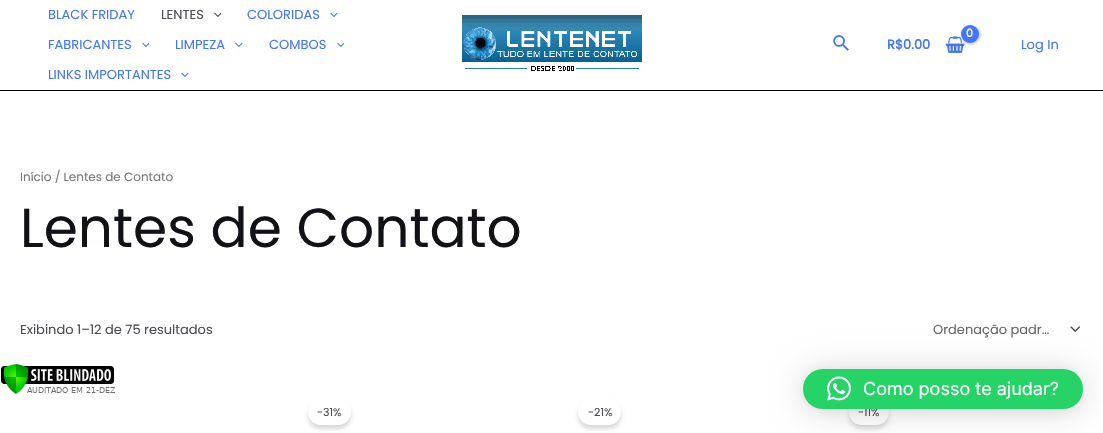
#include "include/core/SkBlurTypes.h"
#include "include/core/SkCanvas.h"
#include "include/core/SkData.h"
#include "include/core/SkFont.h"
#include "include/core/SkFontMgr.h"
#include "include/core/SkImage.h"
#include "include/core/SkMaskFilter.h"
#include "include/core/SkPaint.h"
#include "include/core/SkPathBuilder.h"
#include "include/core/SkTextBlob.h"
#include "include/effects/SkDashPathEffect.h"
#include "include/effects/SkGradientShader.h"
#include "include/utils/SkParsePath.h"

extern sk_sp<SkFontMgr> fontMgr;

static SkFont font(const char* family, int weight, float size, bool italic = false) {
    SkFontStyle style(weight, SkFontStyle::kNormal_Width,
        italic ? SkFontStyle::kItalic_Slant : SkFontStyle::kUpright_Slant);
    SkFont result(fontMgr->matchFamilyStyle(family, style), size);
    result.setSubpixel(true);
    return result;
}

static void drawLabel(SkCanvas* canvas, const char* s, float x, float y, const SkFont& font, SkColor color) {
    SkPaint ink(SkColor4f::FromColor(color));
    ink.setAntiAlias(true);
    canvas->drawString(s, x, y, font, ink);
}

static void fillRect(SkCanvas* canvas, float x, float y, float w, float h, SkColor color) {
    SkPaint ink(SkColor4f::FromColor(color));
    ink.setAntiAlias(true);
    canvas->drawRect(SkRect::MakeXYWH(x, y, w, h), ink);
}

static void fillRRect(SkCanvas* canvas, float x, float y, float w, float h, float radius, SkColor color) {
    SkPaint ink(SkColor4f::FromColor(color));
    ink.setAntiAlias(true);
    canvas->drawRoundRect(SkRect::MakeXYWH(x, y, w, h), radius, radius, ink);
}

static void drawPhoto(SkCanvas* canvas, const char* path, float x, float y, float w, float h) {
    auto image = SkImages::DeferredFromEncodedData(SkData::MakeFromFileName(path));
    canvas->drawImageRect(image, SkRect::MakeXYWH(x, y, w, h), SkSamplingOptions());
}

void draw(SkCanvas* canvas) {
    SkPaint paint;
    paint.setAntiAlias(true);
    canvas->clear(0xFFFFFFFF);
    fillRect(canvas, 0, 90, 1103, 1, 0xFF000000);
    SkFont font1 = font("Poppins", 400, 13);
    drawLabel(canvas, "BLACK FRIDAY", 48, 19, font1, 0xFF4175FC);
    drawLabel(canvas, "LENTES", 161, 19, font1, 0xFF494B51);
    drawPhoto(canvas, "assets/img1.png", 214, 12, 7, 5);
    drawLabel(canvas, "COLORIDAS", 247, 19, font1, 0xFF4175FC);
    drawPhoto(canvas, "assets/img2.png", 330, 12, 8, 5);
    drawLabel(canvas, "FABRICANTES", 48, 49, font1, 0xFF4175FC);
    drawPhoto(canvas, "assets/img3.png", 142, 42, 7, 5);
    drawLabel(canvas, "LIMPEZA", 175, 49, font1, 0xFF4175FC);
    drawPhoto(canvas, "assets/img2.png", 235, 42, 8, 5);
    drawLabel(canvas, "COMBOS", 269, 49, font1, 0xFF4175FC);
    drawPhoto(canvas, "assets/img3.png", 337, 42, 7, 5);
    drawLabel(canvas, "LINKS IMPORTANTES", 48, 79, font1, 0xFF4175FC);
    drawPhoto(canvas, "assets/img2.png", 181, 72, 8, 5);
    drawPhoto(canvas, "assets/img4.png", 462, 15, 180, 56);
    drawPhoto(canvas, "assets/img5.png", 833, 35, 16, 16);
    drawPhoto(canvas, "assets/img6.png", 945, 36, 20, 17);
    paint.setColor(0x4D000000);
    paint.setMaskFilter(SkMaskFilter::MakeBlur(kNormal_SkBlurStyle, 1.5f));
    canvas->drawRoundRect(SkRect::MakeXYWH(962, 26, 18, 18), 9, 9, paint);
    paint.setMaskFilter(nullptr);
    paint.setColor(0xFF4175FC);
    canvas->drawCircle(970, 34, 9, paint);
    SkFont font2 = font("Poppins", 700, 11);
    drawLabel(canvas, "0", 966, 37, font2, 0xFFFFFFFF);
    SkFont font3 = font("Poppins", 700, 13);
    drawLabel(canvas, "R$0.00", 887, 49, font3, 0xFF4175FC);
    drawLabel(canvas, "Log In", 1021, 49, font1, 0xFF4175FC);
    SkFont font4 = font("Poppins", 400, 12);
    drawLabel(canvas, "Início / Lentes de Contato", 20, 181, font4, 0xFF777777);
    SkFont font5 = font("Poppins", 400, 55);
    drawLabel(canvas, "Lentes de Contato", 20, 247, font5, 0xFF101218);
    drawLabel(canvas, "Exibindo 1–12 de 75 resultados", 20, 334, font1, 0xFF494B51);
    drawPhoto(canvas, "assets/img7.png", 1070, 326, 10, 7);
    drawLabel(canvas, "Ordenação padr…", 933, 334, font1, 0xFF666666);
    paint.setColor(0x26000000);
    paint.setMaskFilter(SkMaskFilter::MakeBlur(kNormal_SkBlurStyle, 2));
    canvas->drawRoundRect(SkRect::MakeXYWH(308, 403, 43, 26), 13, 13, paint);
    paint.setMaskFilter(nullptr);
    fillRRect(canvas, 308, 399, 43, 26, 13, 0xFFFFFFFF);
    SkFont font6 = font("Poppins", 400, 11);
    drawLabel(canvas, "-31%", 317, 416, font6, 0xFF494B51);
    fillRect(canvas, 526, 429, 1, 1, 0xFFFEFFFA);
    paint.setMaskFilter(SkMaskFilter::MakeBlur(kNormal_SkBlurStyle, 2));
    canvas->drawRoundRect(SkRect::MakeXYWH(578, 403, 43, 26), 13, 13, paint);
    paint.setMaskFilter(nullptr);
    fillRRect(canvas, 578, 399, 43, 26, 13, 0xFFFFFFFF);
    drawLabel(canvas, "-21%", 588, 416, font6, 0xFF494B51);
    paint.setMaskFilter(SkMaskFilter::MakeBlur(kNormal_SkBlurStyle, 2));
    canvas->drawRoundRect(SkRect::MakeXYWH(849, 403, 40, 26), 13, 13, paint);
    paint.setMaskFilter(nullptr);
    fillRRect(canvas, 849, 399, 40, 26, 13, 0xFFFFFFFF);
    drawLabel(canvas, "-11%", 858, 416, font6, 0xFF494B51);
    drawPhoto(canvas, "assets/img8.png", 1, 364, 114, 30);
    paint.setColor(0x29000000);
    paint.setMaskFilter(SkMaskFilter::MakeBlur(kNormal_SkBlurStyle, 16));
    canvas->drawRoundRect(SkRect::MakeXYWH(803, 371, 280, 40), 20, 20, paint);
    paint.setMaskFilter(nullptr);
    paint.setColor(0x0F000000);
    paint.setMaskFilter(SkMaskFilter::MakeBlur(kNormal_SkBlurStyle, 3));
    canvas->drawRoundRect(SkRect::MakeXYWH(803, 370, 280, 40), 20, 20, paint);
    paint.setMaskFilter(nullptr);
    fillRRect(canvas, 803, 369, 280, 40, 20, 0xFF25D366);
    drawPhoto(canvas, "assets/img9.png", 827, 376, 24, 25);
    SkFont font7 = font("Inter", 400, 18);
    drawLabel(canvas, "Como posso te ajudar?", 863, 395, font7, 0xFFFFFFFF);
}
